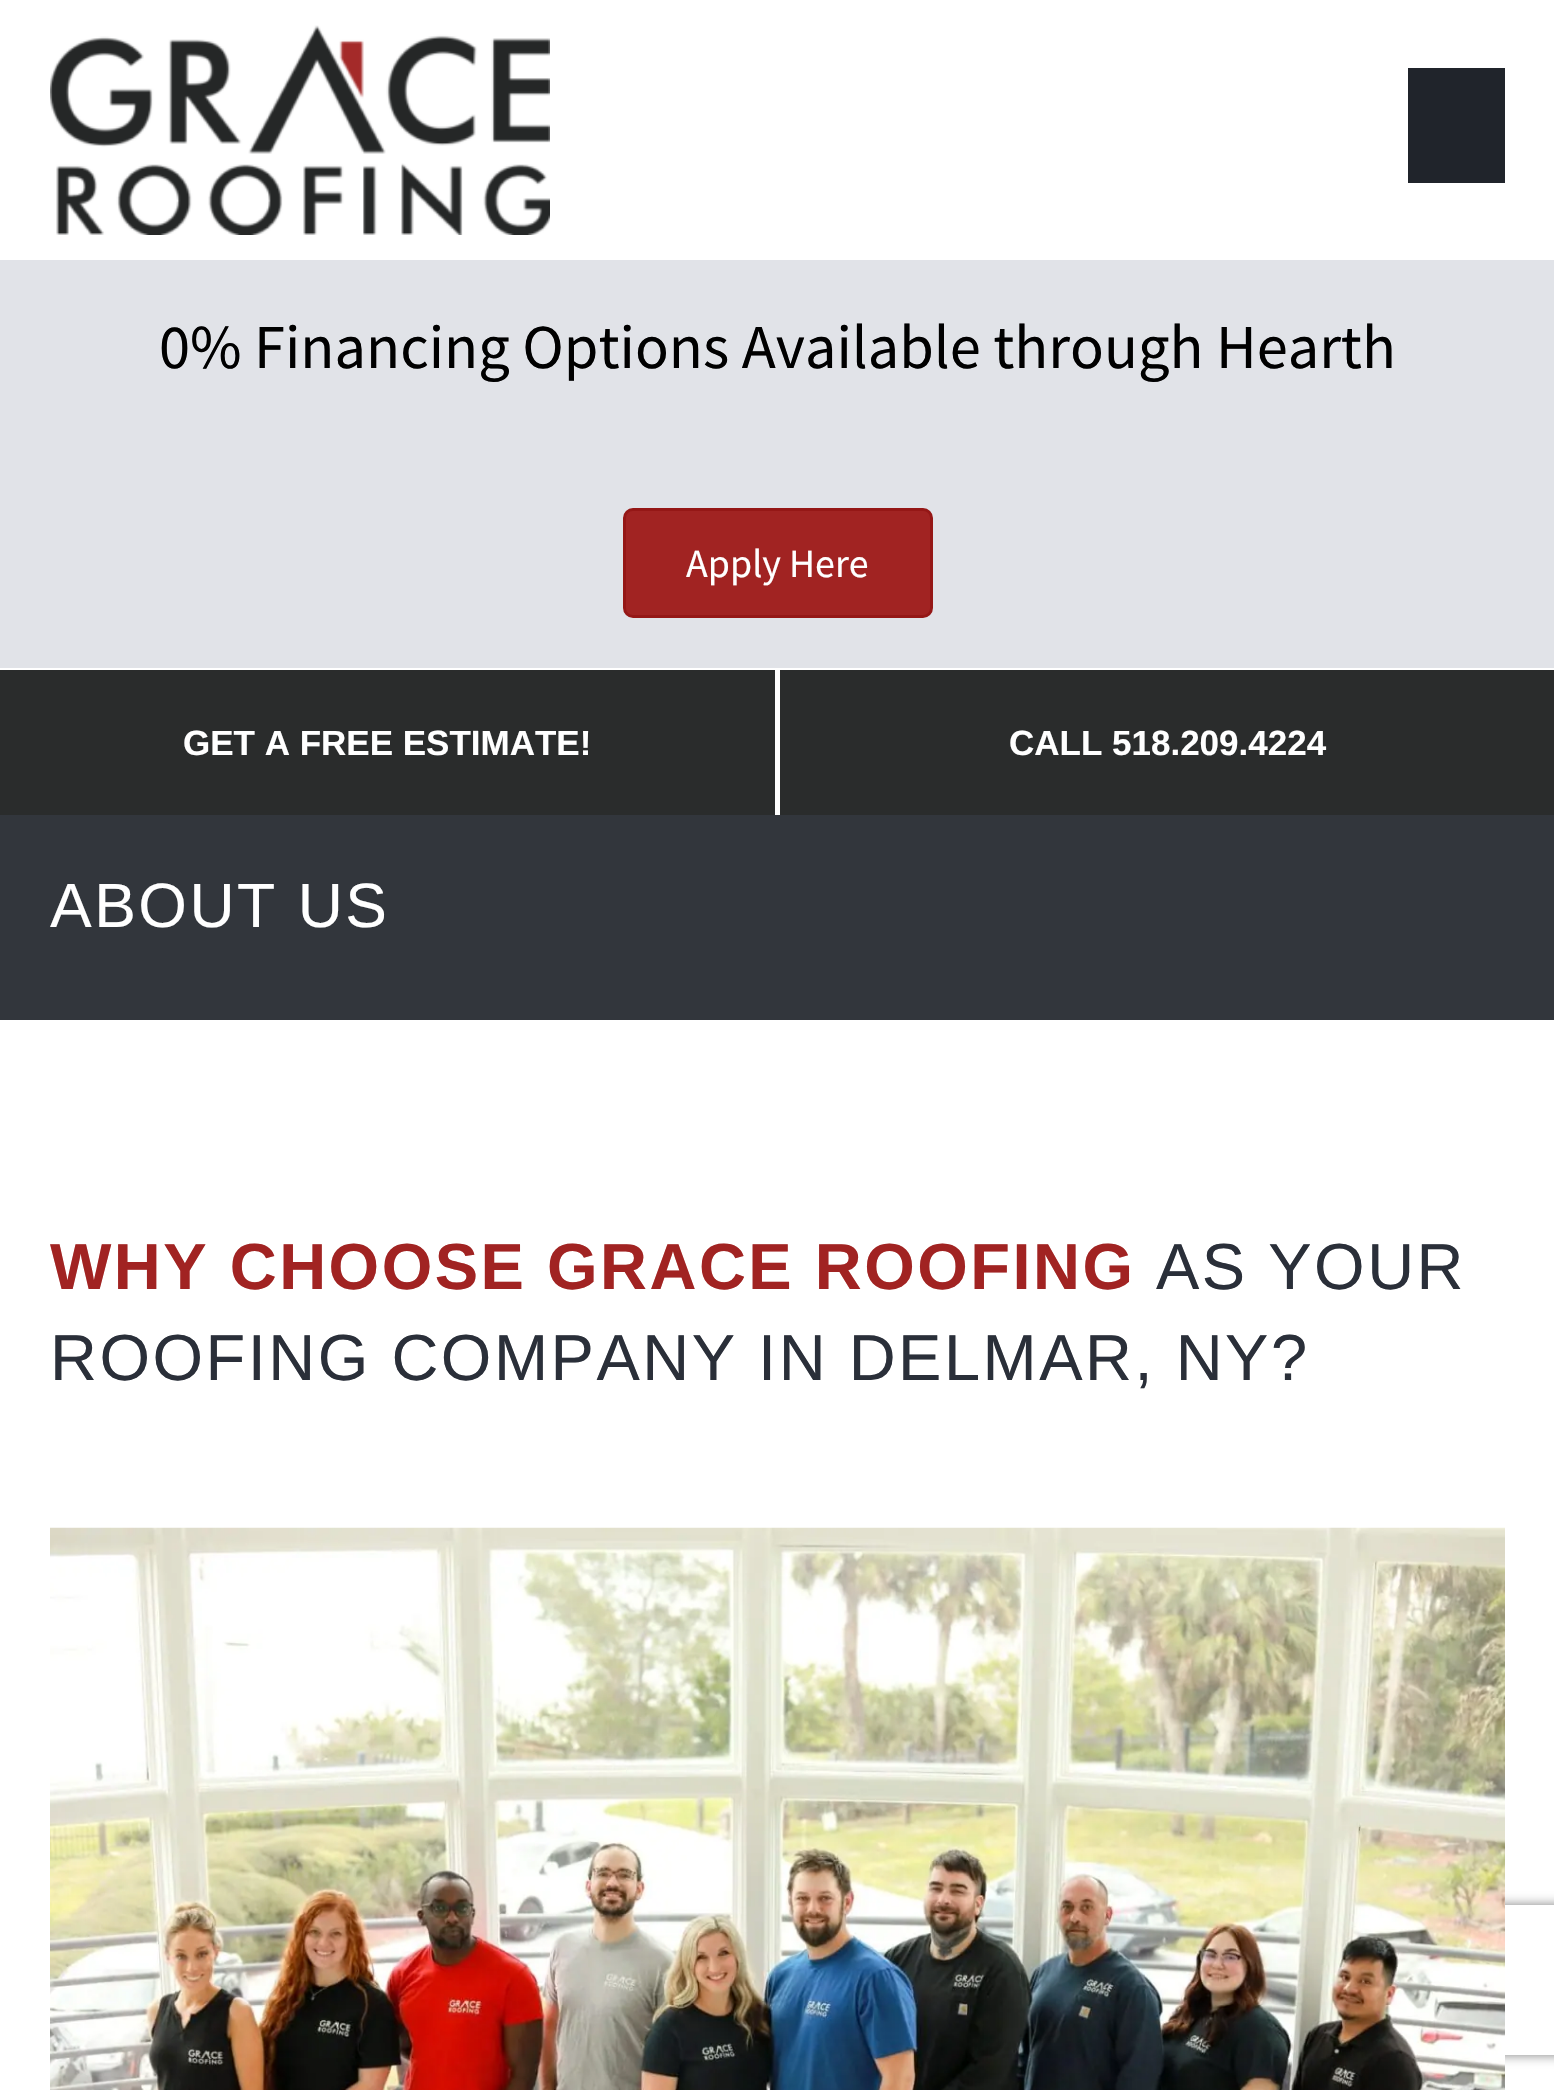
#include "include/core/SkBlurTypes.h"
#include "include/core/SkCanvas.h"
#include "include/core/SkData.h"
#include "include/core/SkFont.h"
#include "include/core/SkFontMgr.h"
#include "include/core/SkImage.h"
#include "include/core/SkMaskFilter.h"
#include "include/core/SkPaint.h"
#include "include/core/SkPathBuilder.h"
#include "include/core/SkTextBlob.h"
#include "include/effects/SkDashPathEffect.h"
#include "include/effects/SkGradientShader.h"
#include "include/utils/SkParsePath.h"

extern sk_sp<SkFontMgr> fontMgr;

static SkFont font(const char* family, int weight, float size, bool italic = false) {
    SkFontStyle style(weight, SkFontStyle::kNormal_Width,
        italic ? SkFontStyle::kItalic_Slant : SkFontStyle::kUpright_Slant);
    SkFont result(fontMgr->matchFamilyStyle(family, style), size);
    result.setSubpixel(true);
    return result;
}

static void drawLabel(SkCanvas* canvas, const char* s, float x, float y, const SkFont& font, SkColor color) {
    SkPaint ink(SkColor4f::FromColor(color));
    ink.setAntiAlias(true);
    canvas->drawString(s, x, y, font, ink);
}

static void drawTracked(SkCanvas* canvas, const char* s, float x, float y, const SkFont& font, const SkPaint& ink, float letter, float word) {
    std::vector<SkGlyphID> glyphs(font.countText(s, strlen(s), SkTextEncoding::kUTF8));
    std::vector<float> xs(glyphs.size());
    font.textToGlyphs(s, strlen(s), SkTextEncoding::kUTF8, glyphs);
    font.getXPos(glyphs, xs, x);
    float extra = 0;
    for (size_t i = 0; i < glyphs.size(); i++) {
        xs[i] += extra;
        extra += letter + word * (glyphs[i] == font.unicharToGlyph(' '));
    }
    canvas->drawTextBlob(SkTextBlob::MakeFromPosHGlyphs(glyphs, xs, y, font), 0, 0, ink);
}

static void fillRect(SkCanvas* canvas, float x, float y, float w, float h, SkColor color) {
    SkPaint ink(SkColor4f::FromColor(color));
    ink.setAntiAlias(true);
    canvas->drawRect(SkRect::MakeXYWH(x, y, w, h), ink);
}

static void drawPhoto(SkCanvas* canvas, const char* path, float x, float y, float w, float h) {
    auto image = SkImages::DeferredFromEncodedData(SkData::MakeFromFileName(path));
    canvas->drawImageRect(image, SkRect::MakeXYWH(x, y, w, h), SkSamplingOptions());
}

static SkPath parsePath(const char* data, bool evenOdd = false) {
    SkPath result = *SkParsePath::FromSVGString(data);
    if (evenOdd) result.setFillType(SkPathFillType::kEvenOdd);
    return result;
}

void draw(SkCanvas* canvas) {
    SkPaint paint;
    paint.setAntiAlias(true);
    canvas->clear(0xFFFFFFFF);
    drawPhoto(canvas, "assets/img1.png", 50, 25, 500, 210);
    fillRect(canvas, 1408, 68, 97, 115, 0xFF20242B);
    fillRect(canvas, 0, 260, 1554, 408, 0xFFE1E3E8);
    SkFont font1 = font("Source Sans Pro", 400, 62.5f);
    drawLabel(canvas, "0% Financing Options Available through Hearth", 159, 368, font1, 0xFF000000);
    paint.setColor(0xFFA12322);
    canvas->drawRoundRect(SkRect::MakeXYWH(624.5f, 509.5f, 307, 107), 8.5f, 8.5f, paint);
    paint.setStroke(true);
    paint.setStrokeWidth(3);
    paint.setColor(0xFF951716);
    canvas->drawRoundRect(SkRect::MakeXYWH(624.5f, 509.5f, 307, 107), 8.5f, 8.5f, paint);
    SkFont font2 = font("Source Sans Pro", 400, 40);
    drawLabel(canvas, "Apply Here", 686, 577, font2, 0xFFFFFFFF);
    fillRect(canvas, 0, 670, 775, 145, 0xFF2A2C2C);
    SkFont font3 = font("Liberation Sans", 700, 35);
    drawLabel(canvas, "GET A FREE ESTIMATE!", 183, 755, font3, 0xFFFFFFFF);
    fillRect(canvas, 780, 670, 774, 145, 0xFF2A2C2C);
    drawLabel(canvas, "CALL 518.209.4224", 1009, 755, font3, 0xFFFFFFFF);
    fillRect(canvas, 0, 815, 1554, 205, 0xFF32363C);
    SkFont font4 = font("Liberation Sans", 400, 62.5f);
    paint.setStroke(false);
    paint.setColor(0xFFFFFFFF);
    drawTracked(canvas, "ABOUT US", 50, 927, font4, paint, 2.5f, 0);
    SkFont font5 = font("Liberation Sans", 700, 65);
    paint.setColor(0xFFA12322);
    drawTracked(canvas, "WHY CHOOSE GRACE ROOFING", 50, 1289, font5, paint, 2.5f, 0);
    SkFont font6 = font("Liberation Sans", 400, 65);
    paint.setColor(0xFF2A2F39);
    drawTracked(canvas, "AS YOUR", 1156, 1289, font6, paint, 2.5f, 0);
    drawTracked(canvas, "ROOFING COMPANY IN DELMAR, NY?", 50, 1380, font6, paint, 2.5f, 0);
    canvas->save();
    canvas->clipPath(parsePath("M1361 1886H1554V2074H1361ZM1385 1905H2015C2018 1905 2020 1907 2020 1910V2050C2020 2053 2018 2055 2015 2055H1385C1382 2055 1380 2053 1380 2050V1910C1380 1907 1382 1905 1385 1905Z", true), true);
    paint.setColor(0xFF808080);
    paint.setMaskFilter(SkMaskFilter::MakeBlur(kNormal_SkBlurStyle, 6));
    canvas->drawRoundRect(SkRect::MakeXYWH(1380, 1905, 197, 150), 5, 5, paint);
    paint.setMaskFilter(nullptr);
    canvas->restore();
    drawPhoto(canvas, "assets/img2.png", 50, 1527, 1455, 563);
}
